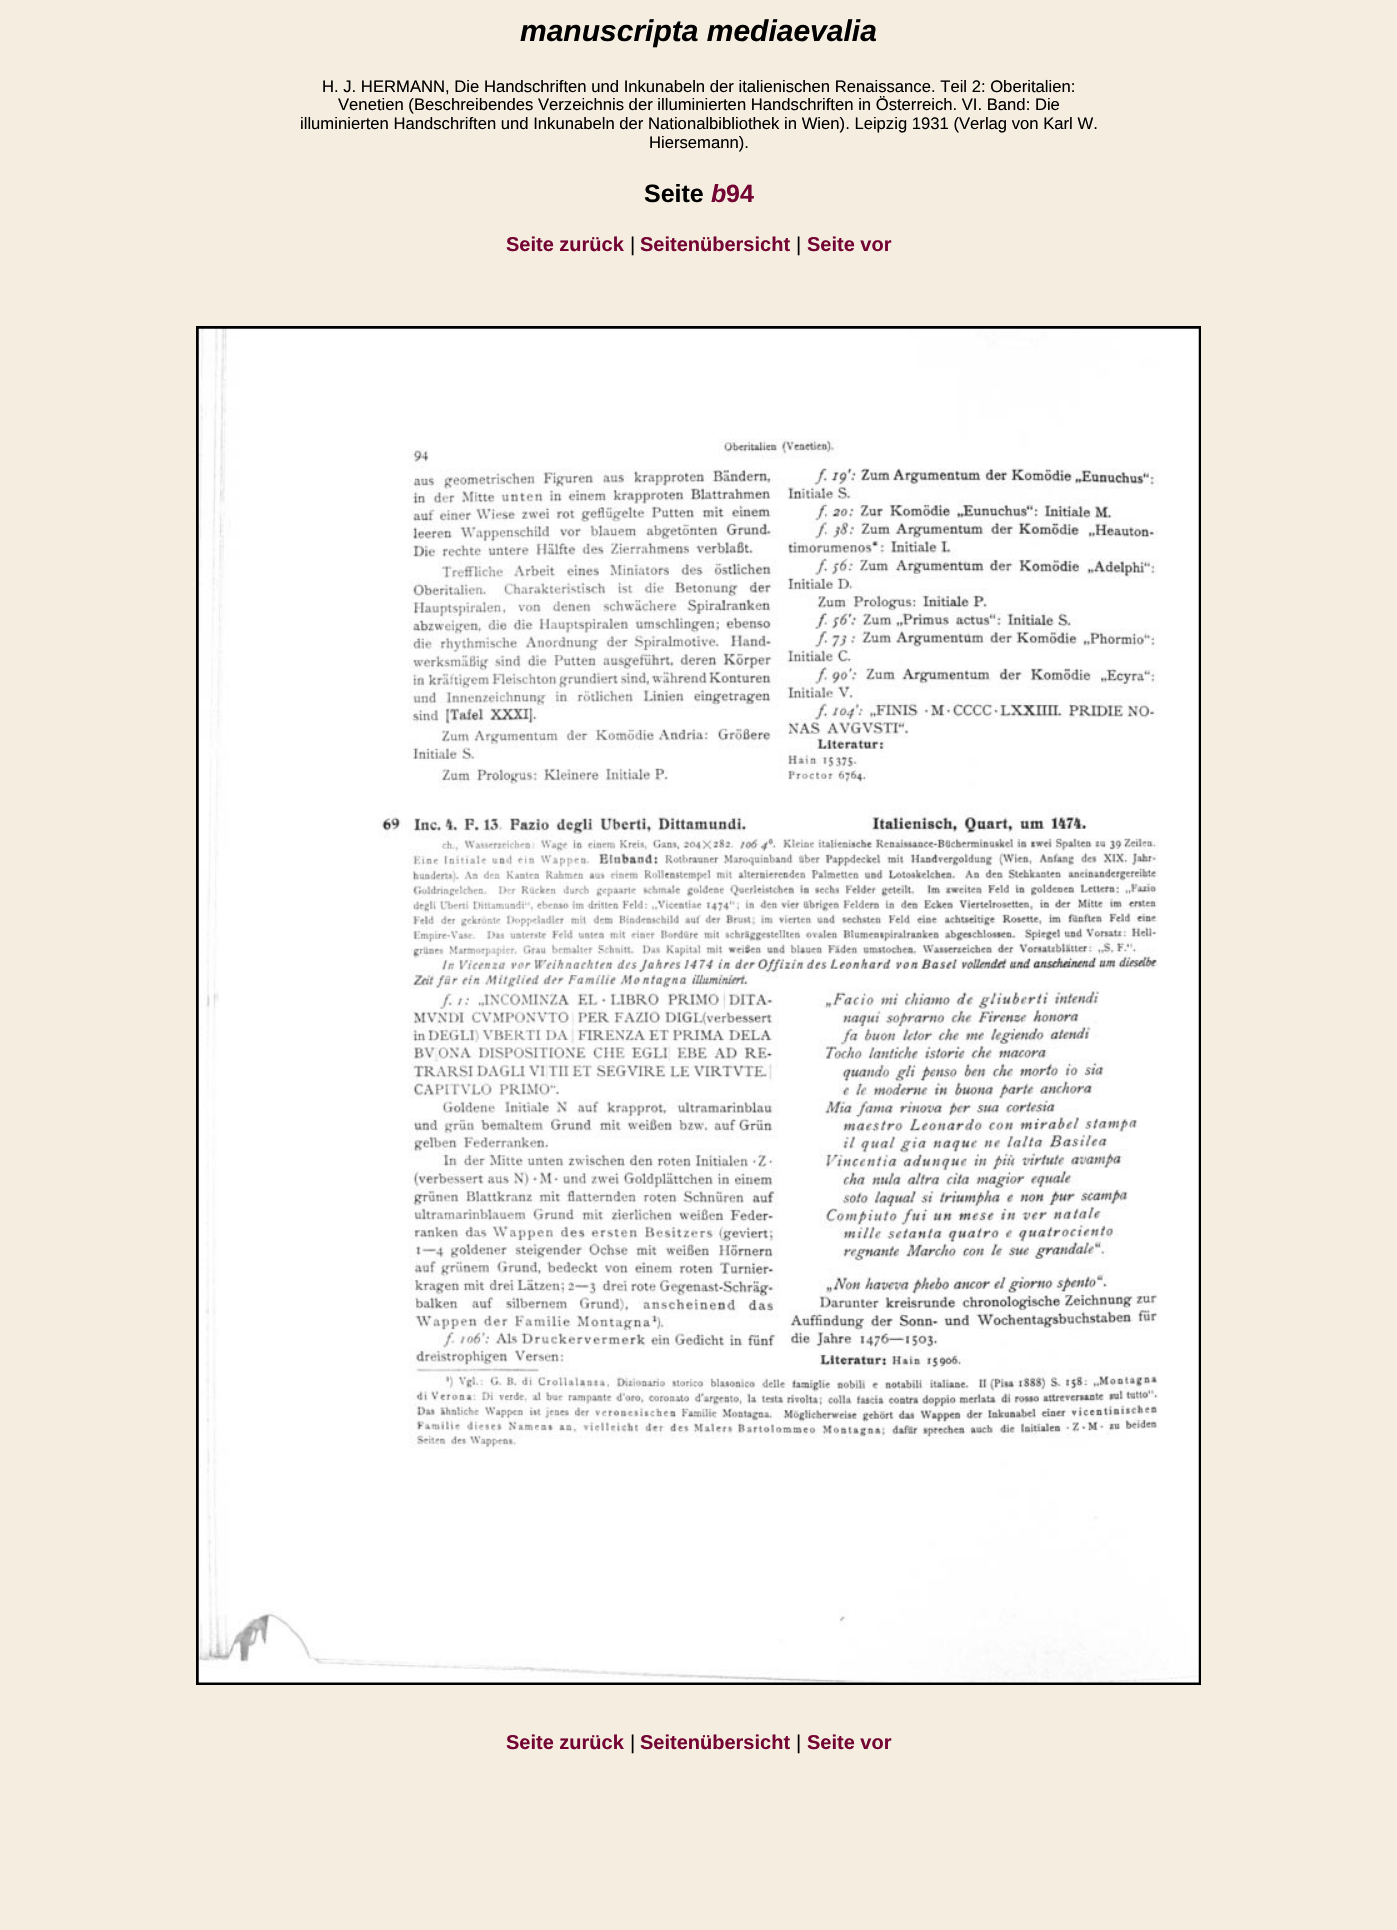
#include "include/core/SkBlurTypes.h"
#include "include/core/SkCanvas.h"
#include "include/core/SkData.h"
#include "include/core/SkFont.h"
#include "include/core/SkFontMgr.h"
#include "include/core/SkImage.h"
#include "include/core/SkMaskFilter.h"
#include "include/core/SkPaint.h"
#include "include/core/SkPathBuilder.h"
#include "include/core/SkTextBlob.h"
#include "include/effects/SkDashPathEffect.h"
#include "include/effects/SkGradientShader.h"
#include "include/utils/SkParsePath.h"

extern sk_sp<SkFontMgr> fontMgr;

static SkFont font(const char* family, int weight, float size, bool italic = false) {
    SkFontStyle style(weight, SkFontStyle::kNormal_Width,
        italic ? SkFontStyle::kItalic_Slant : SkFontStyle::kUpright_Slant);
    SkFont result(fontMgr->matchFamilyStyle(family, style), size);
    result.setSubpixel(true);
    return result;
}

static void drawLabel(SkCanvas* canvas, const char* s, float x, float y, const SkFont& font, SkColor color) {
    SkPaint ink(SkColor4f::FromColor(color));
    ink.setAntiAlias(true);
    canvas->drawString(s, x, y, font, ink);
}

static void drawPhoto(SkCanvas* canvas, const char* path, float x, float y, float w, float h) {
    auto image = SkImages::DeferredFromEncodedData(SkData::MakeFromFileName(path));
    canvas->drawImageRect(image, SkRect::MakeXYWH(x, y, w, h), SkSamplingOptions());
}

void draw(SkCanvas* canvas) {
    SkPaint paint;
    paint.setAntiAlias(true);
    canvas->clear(0xFFF5EDE0);
    SkFont font1 = font("Liberation Sans", 700, 30, true);
    drawLabel(canvas, "manuscripta mediaevalia", 520, 41, font1, 0xFF000000);
    SkFont font2 = font("Liberation Sans", 400, 16.65f);
    drawLabel(canvas, "H. J. HERMANN, Die Handschriften und Inkunabeln der italienischen Renaissance. Teil 2: Oberitalien:", 322, 92, font2, 0xFF000000);
    drawLabel(canvas, "Venetien (Beschreibendes Verzeichnis der illuminierten Handschriften in Österreich. VI. Band: Die", 338, 110, font2, 0xFF000000);
    drawLabel(canvas, "illuminierten Handschriften und Inkunabeln der Nationalbibliothek in Wien). Leipzig 1931 (Verlag von Karl W.", 300, 129, font2, 0xFF000000);
    drawLabel(canvas, "Hiersemann).", 649, 148, font2, 0xFF000000);
    SkFont font3 = font("Liberation Sans", 700, 25);
    drawLabel(canvas, "Seite", 644, 202, font3, 0xFF000000);
    SkFont font4 = font("Liberation Sans", 700, 25, true);
    drawLabel(canvas, "b", 711, 202, font4, 0xFF730433);
    drawLabel(canvas, "94", 726, 202, font3, 0xFF730433);
    SkFont font5 = font("Liberation Sans", 700, 20);
    drawLabel(canvas, "Seite zurück", 506, 251, font5, 0xFF730433);
    SkFont font6 = font("Liberation Sans", 400, 20);
    drawLabel(canvas, "|", 630, 251, font6, 0xFF000000);
    drawLabel(canvas, "Seitenübersicht", 640, 251, font5, 0xFF730433);
    drawLabel(canvas, "|", 796, 251, font6, 0xFF000000);
    drawLabel(canvas, "Seite vor", 807, 251, font5, 0xFF730433);
    paint.setStroke(true);
    paint.setStrokeWidth(3);
    paint.setColor(0xFF000000);
    canvas->drawRect(SkRect::MakeXYWH(197.5f, 327.5f, 1002, 1356), paint);
    drawPhoto(canvas, "assets/img1.png", 198, 328, 1001, 1355);
    drawLabel(canvas, "Seite zurück", 506, 1749, font5, 0xFF730433);
    drawLabel(canvas, "|", 630, 1749, font6, 0xFF000000);
    drawLabel(canvas, "Seitenübersicht", 640, 1749, font5, 0xFF730433);
    drawLabel(canvas, "|", 796, 1749, font6, 0xFF000000);
    drawLabel(canvas, "Seite vor", 807, 1749, font5, 0xFF730433);
}
